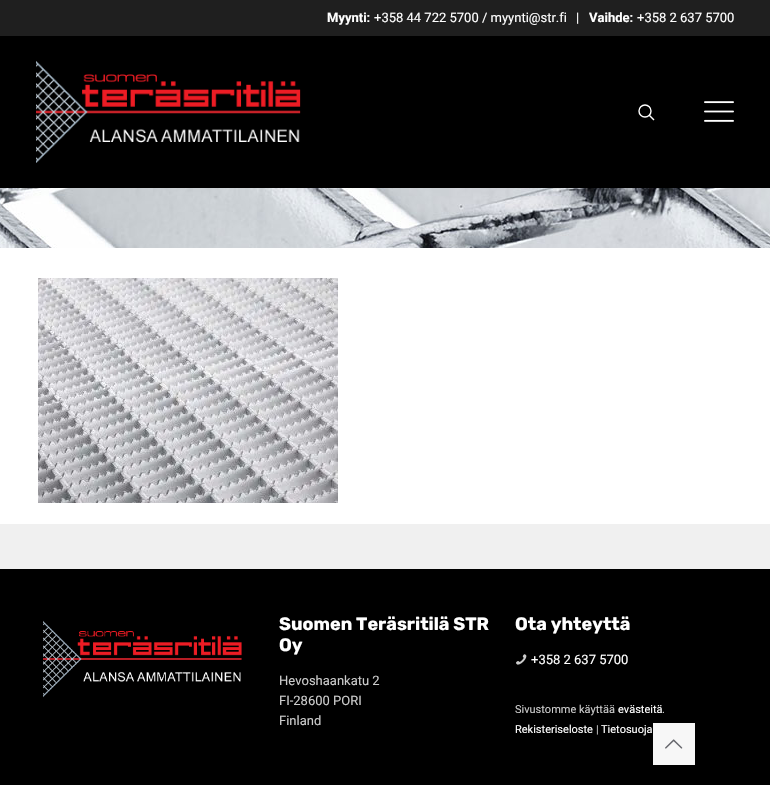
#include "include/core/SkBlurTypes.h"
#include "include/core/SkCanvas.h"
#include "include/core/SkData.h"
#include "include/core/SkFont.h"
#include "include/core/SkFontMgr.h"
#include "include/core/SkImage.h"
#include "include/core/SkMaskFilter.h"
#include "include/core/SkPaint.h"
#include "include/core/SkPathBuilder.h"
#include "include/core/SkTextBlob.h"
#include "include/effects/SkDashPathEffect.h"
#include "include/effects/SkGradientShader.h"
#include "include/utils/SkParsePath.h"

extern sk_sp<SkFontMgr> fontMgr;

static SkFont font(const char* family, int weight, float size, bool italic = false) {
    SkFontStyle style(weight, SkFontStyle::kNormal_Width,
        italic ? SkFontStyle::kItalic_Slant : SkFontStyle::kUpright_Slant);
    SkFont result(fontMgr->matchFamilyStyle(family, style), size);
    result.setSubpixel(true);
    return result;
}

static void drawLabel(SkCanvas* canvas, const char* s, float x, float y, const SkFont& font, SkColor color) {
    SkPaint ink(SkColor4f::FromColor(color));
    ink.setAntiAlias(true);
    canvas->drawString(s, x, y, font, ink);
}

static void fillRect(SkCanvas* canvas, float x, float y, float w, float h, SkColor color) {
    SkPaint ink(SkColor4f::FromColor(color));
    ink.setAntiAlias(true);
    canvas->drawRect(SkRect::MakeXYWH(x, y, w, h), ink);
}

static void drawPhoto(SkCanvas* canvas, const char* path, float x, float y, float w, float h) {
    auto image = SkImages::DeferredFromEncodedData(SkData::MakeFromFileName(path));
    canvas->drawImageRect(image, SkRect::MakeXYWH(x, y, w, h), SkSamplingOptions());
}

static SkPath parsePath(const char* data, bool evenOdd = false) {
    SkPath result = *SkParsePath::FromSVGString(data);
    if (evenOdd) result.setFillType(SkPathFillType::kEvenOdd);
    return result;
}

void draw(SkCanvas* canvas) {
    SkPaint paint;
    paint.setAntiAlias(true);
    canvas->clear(0xFFF0F0F0);
    fillRect(canvas, 0, 248, 770, 276, 0xFFFFFFFF);
    fillRect(canvas, 0, 0, 770, 36, 0xFF1F1F1F);
    SkFont font1 = font("Roboto", 700, 13);
    drawLabel(canvas, "Myynti:", 327, 22, font1, 0xFFFFFFFF);
    SkFont font2 = font("Roboto", 400, 13);
    drawLabel(canvas, "+358 44 722 5700 / myynti@str.fi", 374, 22, font2, 0xFFFFFFFF);
    drawLabel(canvas, "|", 576, 22, font2, 0xFFFFFFFF);
    drawLabel(canvas, "Vaihde:", 589, 22, font1, 0xFFFFFFFF);
    drawLabel(canvas, "+358 2 637 5700", 637, 22, font2, 0xFFFFFFFF);
    fillRect(canvas, 0, 36, 770, 152, 0xFF000000);
    drawPhoto(canvas, "assets/img1.png", 36, 61, 265, 102);
    paint.setStroke(true);
    paint.setStrokeWidth(1.4f);
    paint.setColor(0xFFFFFFFF);
    canvas->drawCircle(645, 111, 6, paint);
    canvas->drawPath(parsePath("M649 115L654 120"), paint);
    drawPhoto(canvas, "assets/img2.png", 704, 101, 30, 21);
    drawPhoto(canvas, "assets/img3.png", 0, 188, 770, 60);
    drawPhoto(canvas, "assets/img4.png", 38, 278, 300, 225);
    fillRect(canvas, 0, 569, 770, 216, 0xFF000000);
    drawPhoto(canvas, "assets/img5.png", 43, 620, 199, 78);
    SkFont font3 = font("Rubik", 300, 18);
    drawLabel(canvas, "Suomen Teräsritilä STR", 279, 630, font3, 0xFFFFFFFF);
    drawLabel(canvas, "Oy", 279, 651, font3, 0xFFFFFFFF);
    drawLabel(canvas, "Hevoshaankatu 2", 279, 685, font2, 0xFFCCCCCC);
    drawLabel(canvas, "FI-28600 PORI", 279, 705, font2, 0xFFCCCCCC);
    drawLabel(canvas, "Finland", 279, 725, font2, 0xFFCCCCCC);
    drawLabel(canvas, "Ota yhteyttä", 515, 630, font3, 0xFFFFFFFF);
    drawPhoto(canvas, "assets/img6.png", 516, 654, 11, 11);
    drawLabel(canvas, "+358 2 637 5700", 531, 664, font2, 0xFFFFFFFF);
    SkFont font4 = font("Roboto", 400, 11);
    drawLabel(canvas, "Sivustomme käyttää", 515, 713, font4, 0xFFCCCCCC);
    drawLabel(canvas, "evästeitä", 618, 713, font4, 0xFFFFFFFF);
    drawLabel(canvas, ".", 662, 713, font4, 0xFFCCCCCC);
    drawLabel(canvas, "Rekisteriseloste", 515, 733, font4, 0xFFFFFFFF);
    drawLabel(canvas, "|", 596, 733, font4, 0xFFCCCCCC);
    drawLabel(canvas, "Tietosuoja", 601, 733, font4, 0xFFFFFFFF);
    fillRect(canvas, 653, 723, 42, 42, 0xFFF7F7F7);
    drawPhoto(canvas, "assets/img7.png", 665, 739, 18, 10);
}
